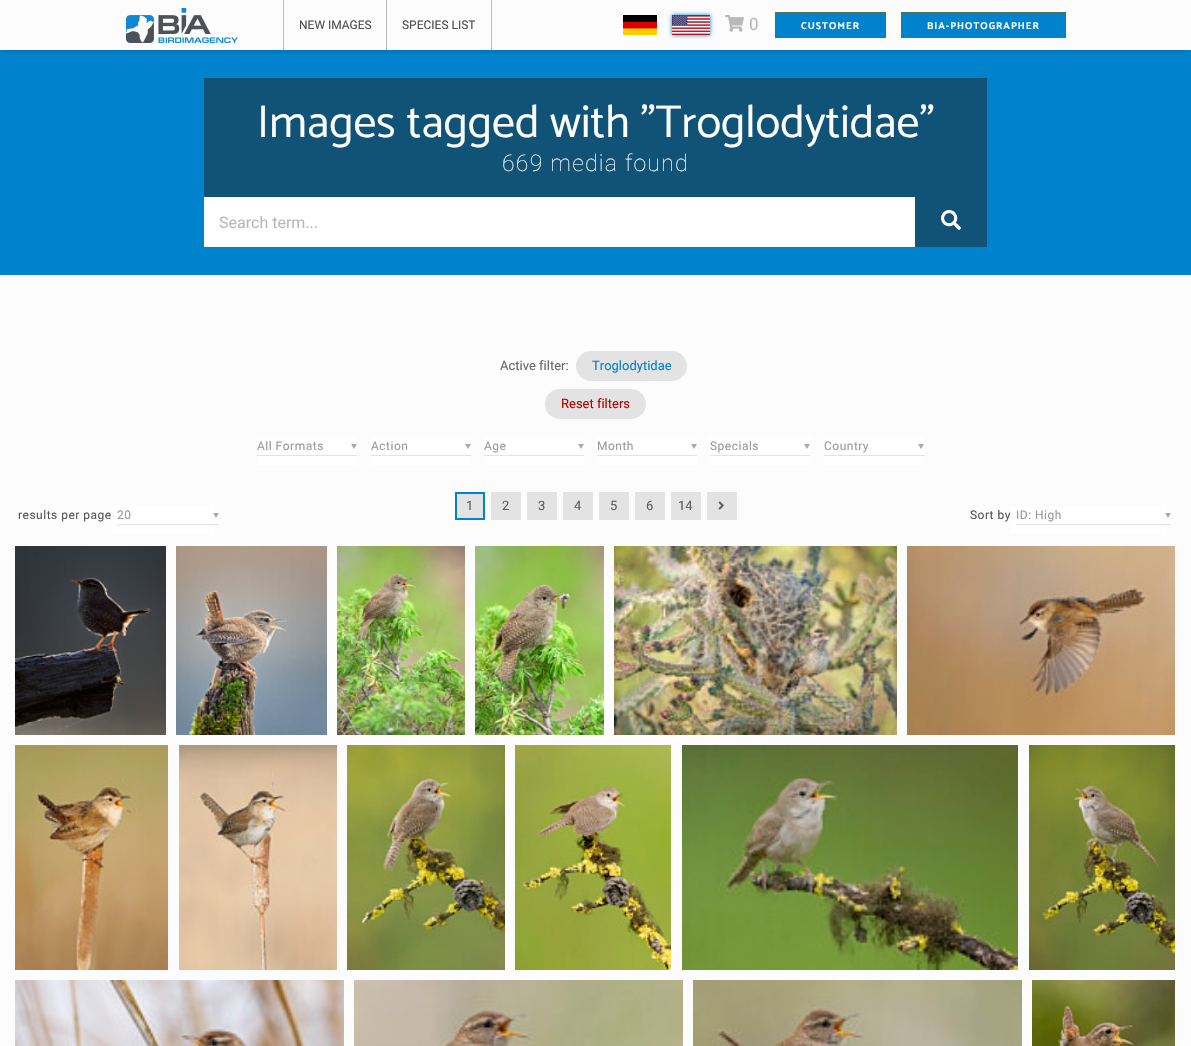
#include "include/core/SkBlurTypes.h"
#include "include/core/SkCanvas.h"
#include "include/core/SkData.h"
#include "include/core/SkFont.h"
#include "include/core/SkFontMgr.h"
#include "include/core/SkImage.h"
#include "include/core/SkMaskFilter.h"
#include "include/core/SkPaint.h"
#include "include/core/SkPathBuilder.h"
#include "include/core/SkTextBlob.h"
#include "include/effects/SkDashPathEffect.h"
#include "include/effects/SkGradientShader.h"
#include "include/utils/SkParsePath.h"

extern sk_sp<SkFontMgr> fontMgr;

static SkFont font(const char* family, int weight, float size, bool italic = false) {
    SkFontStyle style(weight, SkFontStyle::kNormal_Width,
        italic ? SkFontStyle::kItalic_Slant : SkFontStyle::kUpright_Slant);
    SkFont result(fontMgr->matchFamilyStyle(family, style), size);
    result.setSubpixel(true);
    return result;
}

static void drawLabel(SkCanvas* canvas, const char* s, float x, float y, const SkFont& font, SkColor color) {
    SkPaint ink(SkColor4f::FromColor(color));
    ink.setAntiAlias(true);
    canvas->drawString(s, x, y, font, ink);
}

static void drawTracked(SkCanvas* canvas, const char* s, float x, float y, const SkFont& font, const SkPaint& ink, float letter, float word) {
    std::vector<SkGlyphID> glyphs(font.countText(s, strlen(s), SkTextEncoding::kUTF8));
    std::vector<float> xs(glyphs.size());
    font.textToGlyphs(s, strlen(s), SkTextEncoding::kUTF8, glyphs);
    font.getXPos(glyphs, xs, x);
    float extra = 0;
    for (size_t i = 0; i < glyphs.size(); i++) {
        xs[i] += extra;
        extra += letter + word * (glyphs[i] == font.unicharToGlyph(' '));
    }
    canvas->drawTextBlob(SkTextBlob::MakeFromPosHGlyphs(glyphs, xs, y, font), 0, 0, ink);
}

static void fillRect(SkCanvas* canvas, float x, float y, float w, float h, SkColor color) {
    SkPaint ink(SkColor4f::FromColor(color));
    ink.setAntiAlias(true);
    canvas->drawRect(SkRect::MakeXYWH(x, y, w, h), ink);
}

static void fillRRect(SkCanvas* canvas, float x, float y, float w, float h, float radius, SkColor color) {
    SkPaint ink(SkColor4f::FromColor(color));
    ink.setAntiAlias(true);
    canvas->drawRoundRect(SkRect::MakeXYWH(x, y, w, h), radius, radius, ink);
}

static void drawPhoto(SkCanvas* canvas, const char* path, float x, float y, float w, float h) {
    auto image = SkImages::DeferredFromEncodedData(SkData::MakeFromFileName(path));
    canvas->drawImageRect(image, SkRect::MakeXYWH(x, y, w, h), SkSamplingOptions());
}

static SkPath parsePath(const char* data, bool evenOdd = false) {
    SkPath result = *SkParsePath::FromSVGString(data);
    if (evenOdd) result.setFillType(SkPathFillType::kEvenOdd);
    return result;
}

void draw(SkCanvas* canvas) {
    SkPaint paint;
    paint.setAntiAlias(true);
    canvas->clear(0xFFFCFCFC);
    fillRect(canvas, 0, 50, 1191, 225, 0xFF0083CC);
    canvas->save();
    canvas->clipRect(SkRect::MakeXYWH(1, 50, 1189, 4));
    paint.setColor(0x1F000000);
    paint.setMaskFilter(SkMaskFilter::MakeBlur(kNormal_SkBlurStyle, 2.5f));
    canvas->drawRect(SkRect::MakeXYWH(3, 8, 1185, 44), paint);
    paint.setMaskFilter(nullptr);
    canvas->restore();
    drawPhoto(canvas, "assets/img1.png", 126, 8, 112, 35);
    fillRect(canvas, 283, 0, 1, 50, 0xFFBBBBBB);
    fillRect(canvas, 386, 0, 1, 50, 0xFFBBBBBB);
    SkFont font1 = font("Roboto", 400, 12);
    drawLabel(canvas, "NEW IMAGES", 299, 29, font1, 0xFF4E4E4E);
    fillRect(canvas, 491, 0, 1, 50, 0xFFBBBBBB);
    drawLabel(canvas, "SPECIES LIST", 402, 29, font1, 0xFF4E4E4E);
    drawPhoto(canvas, "assets/img2.png", 623, 15, 34, 20);
    paint.setColor(0xFF0083CC);
    paint.setMaskFilter(SkMaskFilter::MakeBlur(kNormal_SkBlurStyle, 2));
    canvas->drawRect(SkRect::MakeXYWH(672, 15, 38, 20), paint);
    paint.setMaskFilter(nullptr);
    drawPhoto(canvas, "assets/img3.png", 672, 15, 38, 20);
    drawPhoto(canvas, "assets/img4.png", 725, 15, 19, 17);
    SkFont font2 = font("Roboto", 400, 17);
    paint.setColor(0xFFB8B8B8);
    drawTracked(canvas, "0", 749, 30, font2, paint, 1, 0);
    paint.setColor(0xFF0083CC);
    canvas->drawRect(SkRect::MakeXYWH(775.5f, 12.5f, 110, 25), paint);
    paint.setStroke(true);
    paint.setStrokeWidth(1);
    paint.setColor(0xFF516F51);
    canvas->drawRect(SkRect::MakeXYWH(775.5f, 12.5f, 110, 25), paint);
    SkFont font3 = font("Catamaran", 700, 10);
    paint.setStroke(false);
    paint.setColor(0xFFFCFCFC);
    drawTracked(canvas, "CUSTOMER", 801, 29, font3, paint, 1, 0);
    paint.setColor(0xFF0083CC);
    canvas->drawRect(SkRect::MakeXYWH(901.5f, 12.5f, 164, 25), paint);
    paint.setStroke(true);
    paint.setColor(0xFF516F51);
    canvas->drawRect(SkRect::MakeXYWH(901.5f, 12.5f, 164, 25), paint);
    paint.setStroke(false);
    paint.setColor(0xFFFCFCFC);
    drawTracked(canvas, "BIA-PHOTOGRAPHER", 927, 29, font3, paint, 1, 0);
    fillRect(canvas, 204, 78, 783, 119, 0xFF115377);
    SkFont font4 = font("Catamaran", 400, 46);
    drawLabel(canvas, "Images tagged with \"Troglodytidae\"", 257, 137, font4, 0xFFFCFCFC);
    SkFont font5 = font("Roboto", 100, 23);
    drawTracked(canvas, "669 media found", 502, 171, font5, paint, 1.25f, 0);
    fillRect(canvas, 204, 197, 711, 50, 0xFFFFFFFF);
    SkFont font6 = font("Roboto", 400, 16);
    drawLabel(canvas, "Search term...", 219, 228, font6, 0xFFB8B8B8);
    fillRect(canvas, 915, 197, 72, 50, 0xFF115277);
    drawPhoto(canvas, "assets/img5.png", 941, 210, 20, 20);
    SkFont font7 = font("Roboto", 400, 13);
    drawLabel(canvas, "Active filter:", 500, 370, font7, 0xFF666666);
    fillRRect(canvas, 576, 351, 111, 30, 15, 0xFFE3E3E3);
    drawLabel(canvas, "Troglodytidae", 592, 370, font7, 0xFF0083CC);
    fillRRect(canvas, 545, 389, 101, 30, 15, 0xFFE3E3E3);
    drawLabel(canvas, "Reset filters", 561, 408, font7, 0xFFB50000);
    fillRect(canvas, 257, 437, 100, 28, 0xFFFFFFFF);
    fillRect(canvas, 257, 455, 100, 1, 0xFFE3E3E3);
    paint.setColor(0xFF999999);
    drawTracked(canvas, "All Formats", 257, 450, font1, paint, 0.5f, 0);
    paint.setColor(0xFFAAAAAA);
    canvas->drawPath(parsePath("M351 444H357L354 449Z"), paint);
    fillRect(canvas, 371, 437, 100, 28, 0xFFFFFFFF);
    fillRect(canvas, 371, 455, 100, 1, 0xFFE3E3E3);
    paint.setColor(0xFF999999);
    drawTracked(canvas, "Action", 371, 450, font1, paint, 0.5f, 0);
    paint.setColor(0xFFAAAAAA);
    canvas->drawPath(parsePath("M465 444H471L468 449Z"), paint);
    fillRect(canvas, 484, 437, 100, 28, 0xFFFFFFFF);
    fillRect(canvas, 484, 455, 100, 1, 0xFFE3E3E3);
    paint.setColor(0xFF999999);
    drawTracked(canvas, "Age", 484, 450, font1, paint, 0.5f, 0);
    paint.setColor(0xFFAAAAAA);
    canvas->drawPath(parsePath("M578 444H584L581 449Z"), paint);
    fillRect(canvas, 597, 437, 100, 28, 0xFFFFFFFF);
    fillRect(canvas, 597, 455, 100, 1, 0xFFE3E3E3);
    paint.setColor(0xFF999999);
    drawTracked(canvas, "Month", 597, 450, font1, paint, 0.5f, 0);
    paint.setColor(0xFFAAAAAA);
    canvas->drawPath(parsePath("M691 444H697L694 449Z"), paint);
    fillRect(canvas, 710, 437, 100, 28, 0xFFFFFFFF);
    fillRect(canvas, 710, 455, 100, 1, 0xFFE3E3E3);
    paint.setColor(0xFF999999);
    drawTracked(canvas, "Specials", 710, 450, font1, paint, 0.5f, 0);
    paint.setColor(0xFFAAAAAA);
    canvas->drawPath(parsePath("M804 444H810L807 449Z"), paint);
    fillRect(canvas, 824, 437, 100, 28, 0xFFFFFFFF);
    fillRect(canvas, 824, 455, 100, 1, 0xFFE3E3E3);
    paint.setColor(0xFF999999);
    drawTracked(canvas, "Country", 824, 450, font1, paint, 0.5f, 0);
    paint.setColor(0xFFAAAAAA);
    canvas->drawPath(parsePath("M918 444H924L921 449Z"), paint);
    paint.setColor(0xFFE3E3E3);
    canvas->drawRect(SkRect::MakeXYWH(456, 493, 28, 26), paint);
    paint.setStroke(true);
    paint.setStrokeWidth(2);
    paint.setColor(0xFF0083CC);
    canvas->drawRect(SkRect::MakeXYWH(456, 493, 28, 26), paint);
    drawLabel(canvas, "1", 466, 510, font7, 0xFF5D5D5D);
    fillRect(canvas, 491, 492, 30, 28, 0xFFE3E3E3);
    drawLabel(canvas, "2", 502, 510, font7, 0xFF5D5D5D);
    fillRect(canvas, 527, 492, 30, 28, 0xFFE3E3E3);
    drawLabel(canvas, "3", 538, 510, font7, 0xFF5D5D5D);
    fillRect(canvas, 563, 492, 30, 28, 0xFFE3E3E3);
    drawLabel(canvas, "4", 574, 510, font7, 0xFF5D5D5D);
    fillRect(canvas, 599, 492, 30, 28, 0xFFE3E3E3);
    drawLabel(canvas, "5", 610, 510, font7, 0xFF5D5D5D);
    fillRect(canvas, 635, 492, 30, 28, 0xFFE3E3E3);
    drawLabel(canvas, "6", 646, 510, font7, 0xFF5D5D5D);
    fillRect(canvas, 671, 492, 30, 28, 0xFFE3E3E3);
    drawLabel(canvas, "14", 678, 510, font7, 0xFF5D5D5D);
    fillRect(canvas, 707, 492, 30, 28, 0xFFE3E3E3);
    drawPhoto(canvas, "assets/img6.png", 718, 501, 6, 9);
    paint.setStroke(false);
    paint.setColor(0xFF555555);
    drawTracked(canvas, "results per page", 18, 519, font1, paint, 0.5f, 0);
    fillRect(canvas, 112, 506, 102, 28, 0xFFFFFFFF);
    fillRect(canvas, 117, 524, 102, 1, 0xFFE3E3E3);
    paint.setColor(0xFF999999);
    drawTracked(canvas, "20", 117, 519, font1, paint, 0.5f, 0);
    paint.setColor(0xFFAAAAAA);
    canvas->drawPath(parsePath("M213 513H219L216 518Z"), paint);
    paint.setColor(0xFF555555);
    drawTracked(canvas, "Sort by", 970, 519, font1, paint, 0.5f, 0);
    fillRect(canvas, 1011, 506, 155, 28, 0xFFFFFFFF);
    fillRect(canvas, 1016, 524, 155, 1, 0xFFE3E3E3);
    paint.setColor(0xFF999999);
    drawTracked(canvas, "ID: High", 1016, 519, font1, paint, 0.5f, 0);
    paint.setColor(0xFFAAAAAA);
    canvas->drawPath(parsePath("M1165 513H1171L1168 518Z"), paint);
    drawPhoto(canvas, "assets/img7.png", 15, 546, 151, 189);
    drawPhoto(canvas, "assets/img8.png", 176, 546, 151, 189);
    drawPhoto(canvas, "assets/img9.png", 337, 546, 128, 189);
    drawPhoto(canvas, "assets/img10.png", 475, 546, 129, 189);
    drawPhoto(canvas, "assets/img11.png", 614, 546, 283, 189);
    drawPhoto(canvas, "assets/img12.png", 907, 546, 268, 189);
    drawPhoto(canvas, "assets/img13.png", 15, 745, 153, 225);
    drawPhoto(canvas, "assets/img14.png", 179, 745, 158, 225);
    drawPhoto(canvas, "assets/img15.png", 347, 745, 158, 225);
    drawPhoto(canvas, "assets/img16.png", 515, 745, 156, 225);
    drawPhoto(canvas, "assets/img17.png", 682, 745, 336, 225);
    drawPhoto(canvas, "assets/img18.png", 1029, 745, 146, 225);
    drawPhoto(canvas, "assets/img19.png", 15, 980, 329, 66);
    drawPhoto(canvas, "assets/img20.png", 354, 980, 329, 66);
    drawPhoto(canvas, "assets/img21.png", 693, 980, 329, 66);
    drawPhoto(canvas, "assets/img22.png", 1032, 980, 143, 66);
}
